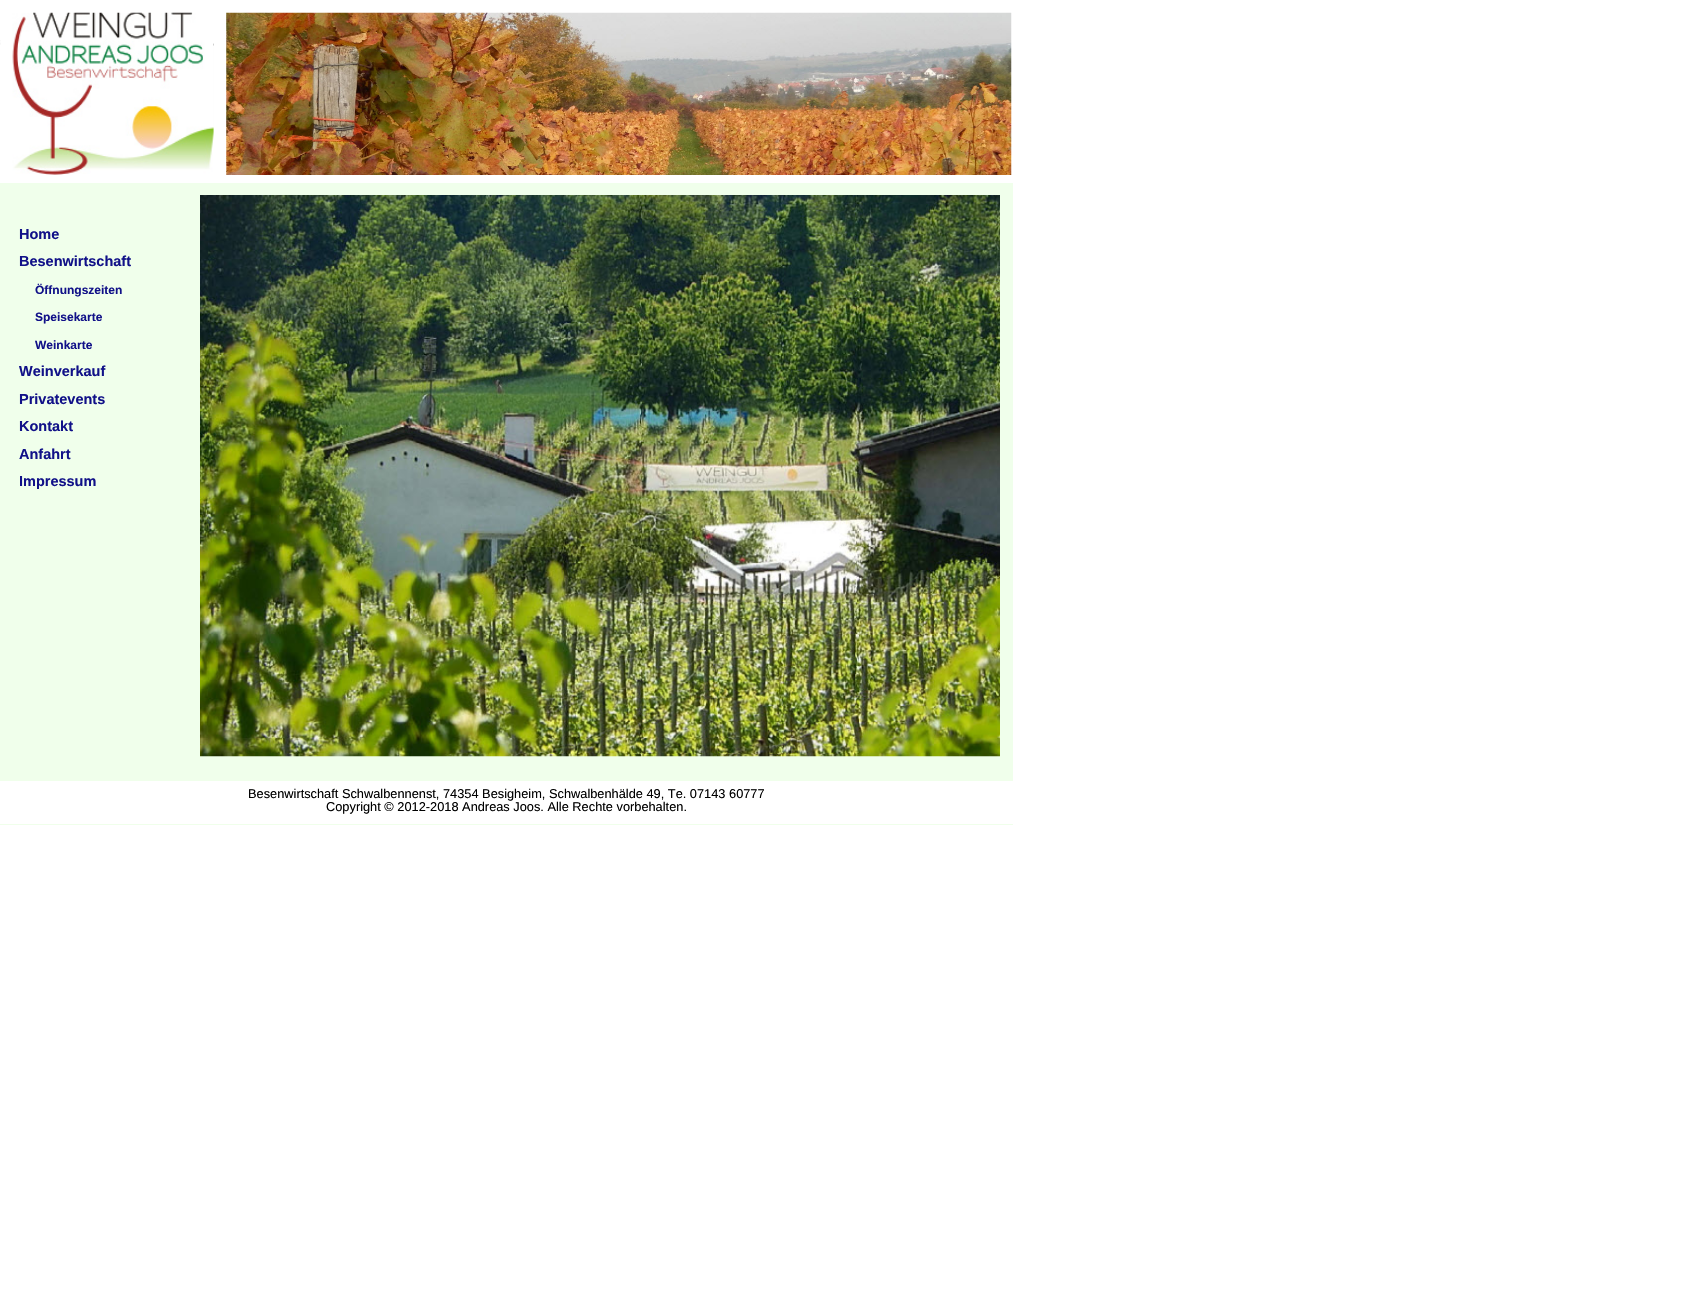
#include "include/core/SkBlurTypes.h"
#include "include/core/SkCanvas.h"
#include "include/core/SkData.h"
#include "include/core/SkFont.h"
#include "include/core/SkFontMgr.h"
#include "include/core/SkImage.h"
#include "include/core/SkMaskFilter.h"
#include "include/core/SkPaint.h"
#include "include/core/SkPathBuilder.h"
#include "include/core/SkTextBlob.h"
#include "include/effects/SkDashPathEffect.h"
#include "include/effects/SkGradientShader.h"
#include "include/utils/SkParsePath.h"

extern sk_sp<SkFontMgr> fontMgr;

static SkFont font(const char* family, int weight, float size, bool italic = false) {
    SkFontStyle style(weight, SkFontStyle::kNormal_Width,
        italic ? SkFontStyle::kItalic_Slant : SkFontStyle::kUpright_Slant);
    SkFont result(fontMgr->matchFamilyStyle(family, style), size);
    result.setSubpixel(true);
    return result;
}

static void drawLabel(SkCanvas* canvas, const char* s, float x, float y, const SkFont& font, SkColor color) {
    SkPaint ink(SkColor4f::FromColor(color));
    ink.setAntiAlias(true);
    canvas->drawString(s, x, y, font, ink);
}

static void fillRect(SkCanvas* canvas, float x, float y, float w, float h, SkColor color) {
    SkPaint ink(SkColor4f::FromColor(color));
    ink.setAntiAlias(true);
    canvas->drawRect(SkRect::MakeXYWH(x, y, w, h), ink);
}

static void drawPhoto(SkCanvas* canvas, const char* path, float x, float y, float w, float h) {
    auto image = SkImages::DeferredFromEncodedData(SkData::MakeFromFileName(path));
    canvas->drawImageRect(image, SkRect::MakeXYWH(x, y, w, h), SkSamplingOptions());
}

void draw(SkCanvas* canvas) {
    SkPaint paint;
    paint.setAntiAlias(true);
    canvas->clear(0xFFFFFFFF);
    fillRect(canvas, 0, 183, 1013, 642, 0xFFF0FFEB);
    drawPhoto(canvas, "assets/img1.png", 0, 40, 1, 5);
    drawPhoto(canvas, "assets/img2.png", 12, 12, 202, 163);
    drawPhoto(canvas, "assets/img3.png", 226, 12, 786, 163);
    drawPhoto(canvas, "assets/img4.png", 213, 43, 1, 96);
    SkFont font1 = font("Liberation Sans", 700, 14.5f);
    drawLabel(canvas, "Home", 19, 239, font1, 0xFF111188);
    drawLabel(canvas, "Besenwirtschaft", 19, 266, font1, 0xFF111188);
    SkFont font2 = font("Liberation Sans", 700, 12);
    drawLabel(canvas, "Öffnungszeiten", 35, 294, font2, 0xFF111188);
    drawLabel(canvas, "Speisekarte", 35, 321, font2, 0xFF111188);
    drawLabel(canvas, "Weinkarte", 35, 349, font2, 0xFF111188);
    drawLabel(canvas, "Weinverkauf", 19, 376, font1, 0xFF111188);
    drawLabel(canvas, "Privatevents", 19, 404, font1, 0xFF111188);
    drawLabel(canvas, "Kontakt", 19, 431, font1, 0xFF111188);
    drawLabel(canvas, "Anfahrt", 19, 459, font1, 0xFF111188);
    drawLabel(canvas, "Impressum", 19, 486, font1, 0xFF111188);
    drawPhoto(canvas, "assets/img5.png", 200, 195, 800, 562);
    fillRect(canvas, 0, 781, 1013, 43, 0xFFFFFFFF);
    SkFont font3 = font("Liberation Sans", 400, 12.8f);
    drawLabel(canvas, "Besenwirtschaft Schwalbennenst, 74354 Besigheim, Schwalbenhälde 49, Te. 07143 60777", 248, 798, font3, 0xFF000000);
    drawLabel(canvas, "Copyright © 2012-2018 Andreas Joos. Alle Rechte vorbehalten.", 326, 811, font3, 0xFF000000);
}
